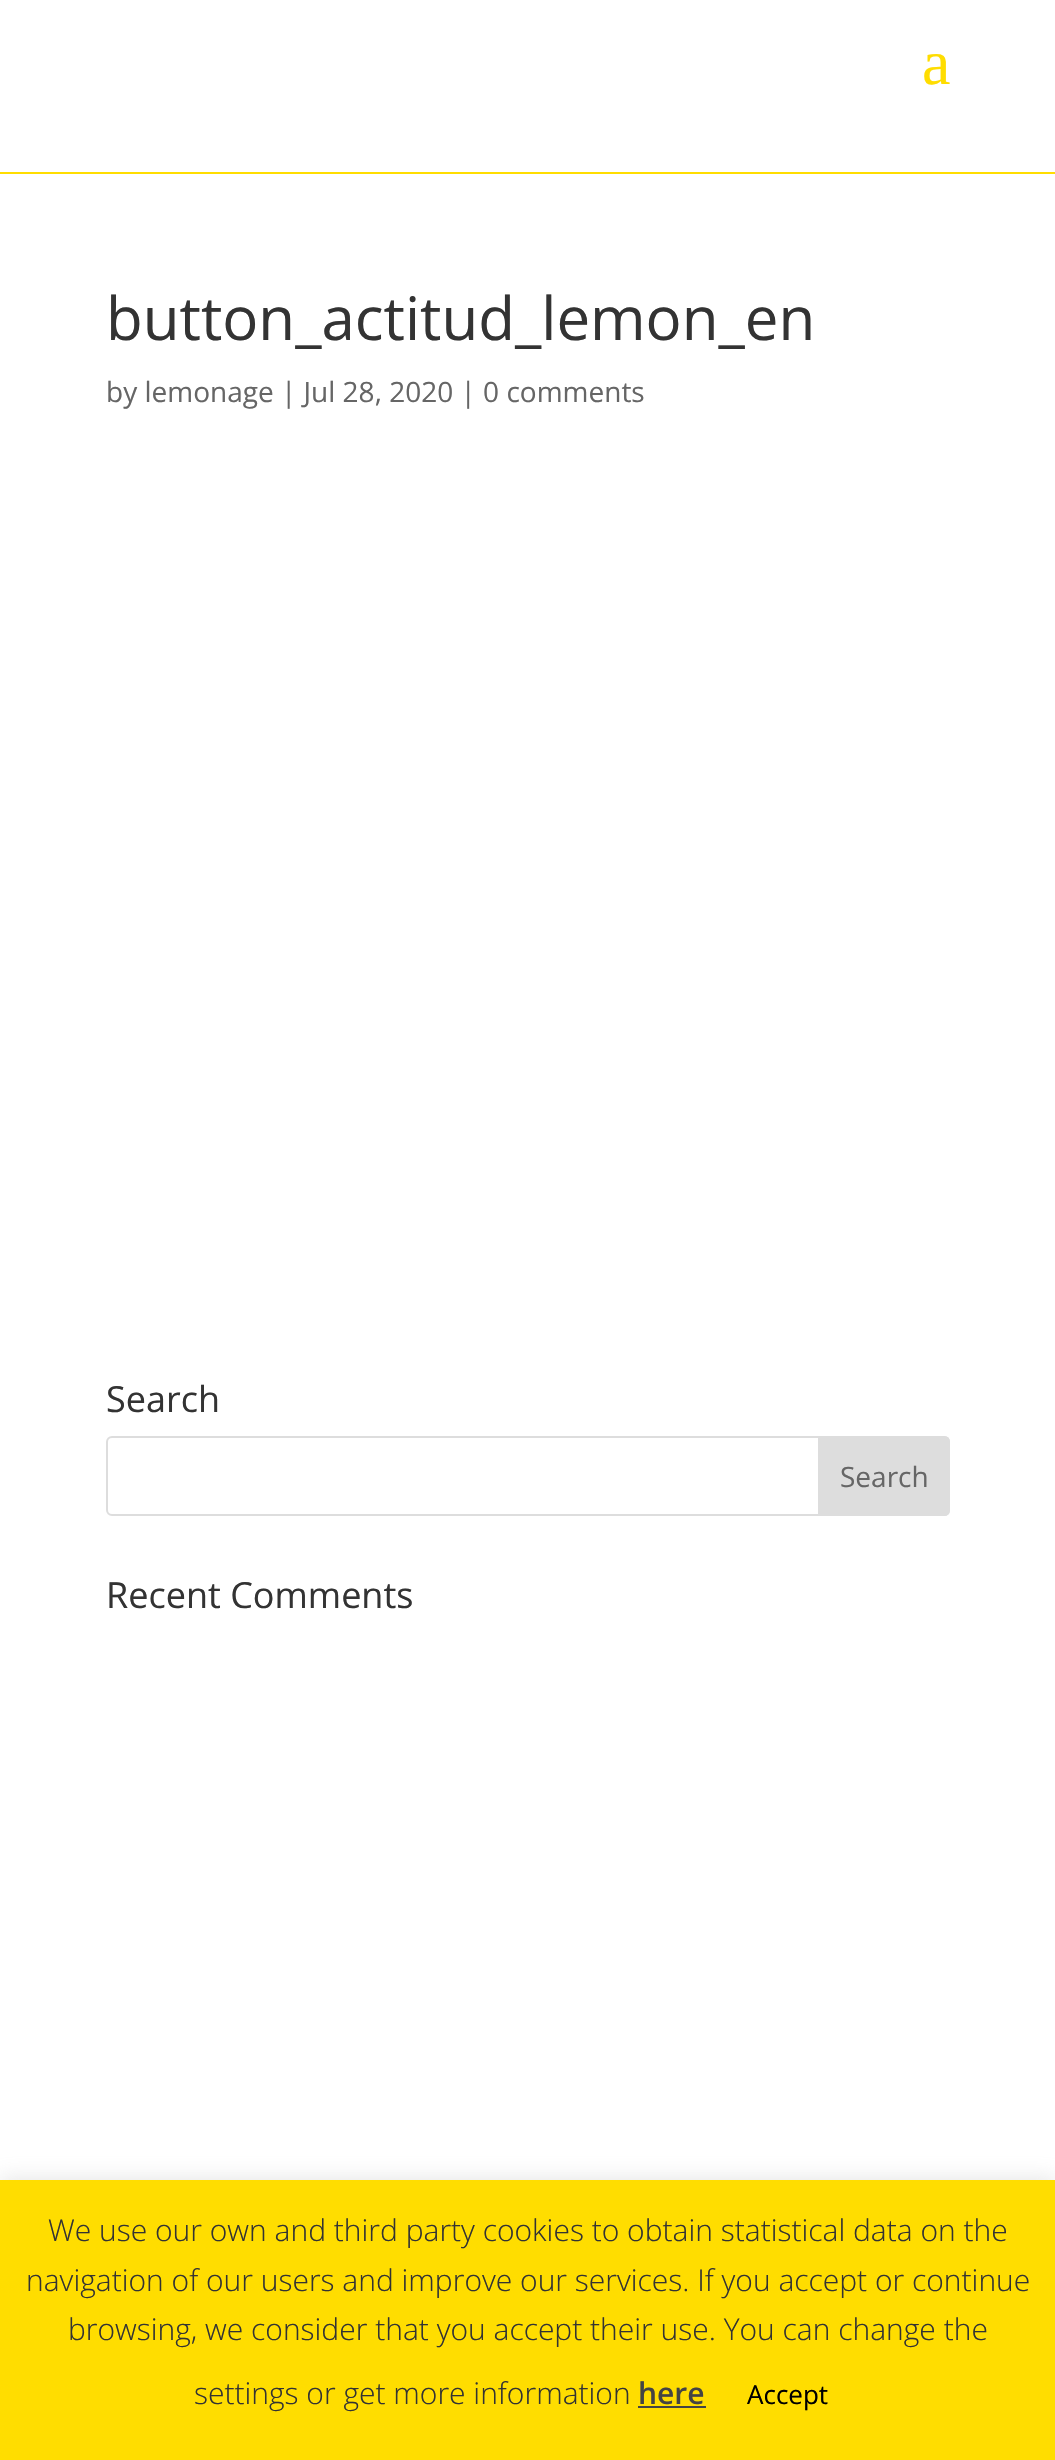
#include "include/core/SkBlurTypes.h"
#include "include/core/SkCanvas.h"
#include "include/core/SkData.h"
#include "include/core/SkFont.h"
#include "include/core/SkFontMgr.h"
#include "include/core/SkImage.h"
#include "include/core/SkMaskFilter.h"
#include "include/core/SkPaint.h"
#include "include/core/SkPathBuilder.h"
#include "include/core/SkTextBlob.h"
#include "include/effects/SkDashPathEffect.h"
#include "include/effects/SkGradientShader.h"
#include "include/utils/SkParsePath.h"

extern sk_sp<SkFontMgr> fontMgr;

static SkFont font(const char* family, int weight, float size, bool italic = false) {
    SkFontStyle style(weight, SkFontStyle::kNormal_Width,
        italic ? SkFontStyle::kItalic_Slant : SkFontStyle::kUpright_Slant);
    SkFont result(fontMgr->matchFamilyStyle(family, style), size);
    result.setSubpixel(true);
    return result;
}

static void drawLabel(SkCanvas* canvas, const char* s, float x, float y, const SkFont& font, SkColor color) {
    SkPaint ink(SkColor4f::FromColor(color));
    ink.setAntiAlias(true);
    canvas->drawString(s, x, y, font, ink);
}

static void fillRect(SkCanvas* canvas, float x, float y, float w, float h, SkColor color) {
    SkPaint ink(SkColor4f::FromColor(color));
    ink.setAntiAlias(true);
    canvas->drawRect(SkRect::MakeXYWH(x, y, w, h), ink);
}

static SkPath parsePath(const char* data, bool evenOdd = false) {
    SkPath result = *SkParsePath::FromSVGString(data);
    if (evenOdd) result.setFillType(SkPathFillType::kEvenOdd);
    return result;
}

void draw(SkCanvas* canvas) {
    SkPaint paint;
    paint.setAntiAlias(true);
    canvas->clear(0xFFFFFFFF);
    fillRect(canvas, 0, 172, 1055, 2, 0xFFFFDD00);
    SkFont font1 = font("Liberation Serif", 400, 64);
    drawLabel(canvas, "a", 922, 84, font1, 0xFFFFDD00);
    SkFont font2 = font("Open Sans", 400, 60);
    drawLabel(canvas, "button_actitud_lemon_en", 106, 340, font2, 0xFF333333);
    SkFont font3 = font("Open Sans", 400, 28);
    drawLabel(canvas, "by lemonage | Jul 28, 2020 | 0 comments", 106, 402, font3, 0xFF666666);
    SkFont font4 = font("Open Sans", 400, 36);
    drawLabel(canvas, "Search", 106, 1412, font4, 0xFF333333);
    paint.setStroke(true);
    paint.setStrokeWidth(2);
    paint.setColor(0xFFDDDDDD);
    canvas->drawRoundRect(SkRect::MakeXYWH(107, 1437, 842, 78), 5, 5, paint);
    paint.setStroke(false);
    canvas->drawPath(parsePath("M819 1437H944C947 1437 949 1439 949 1442V1510C949 1513 947 1515 944 1515H819Z"), paint);
    paint.setStroke(true);
    canvas->drawPath(parsePath("M819 1437H944C947 1437 949 1439 949 1442V1510C949 1513 947 1515 944 1515H819Z"), paint);
    drawLabel(canvas, "Search", 840, 1487, font3, 0xFF666666);
    drawLabel(canvas, "Recent Comments", 106, 1608, font4, 0xFF333333);
    paint.setStroke(false);
    paint.setColor(0x4DACABAB);
    paint.setMaskFilter(SkMaskFilter::MakeBlur(kNormal_SkBlurStyle, 10));
    canvas->drawRect(SkRect::MakeXYWH(0, 2178, 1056, 280), paint);
    paint.setMaskFilter(nullptr);
    fillRect(canvas, 0, 2180, 1055, 280, 0xFFFFDD00);
    SkFont font5 = font("Open Sans", 300, 30);
    drawLabel(canvas, "We use our own and third party cookies to obtain statistical data on the", 48, 2241, font5, 0xFF333333);
    drawLabel(canvas, "navigation of our users and improve our services. If you accept or continue", 26, 2291, font5, 0xFF333333);
    drawLabel(canvas, "browsing, we consider that you accept their use. You can change the", 68, 2340, font5, 0xFF333333);
    drawLabel(canvas, "settings or get more information", 194, 2404, font5, 0xFF333333);
    SkFont font6 = font("Open Sans", 600, 30);
    drawLabel(canvas, "here", 638, 2404, font6, 0xFF444444);
    fillRect(canvas, 638, 2406, 68, 2, 0xFF444444);
    SkFont font7 = font("Open Sans", 400, 26);
    drawLabel(canvas, "Accept", 747, 2404, font7, 0xFF000000);
}
